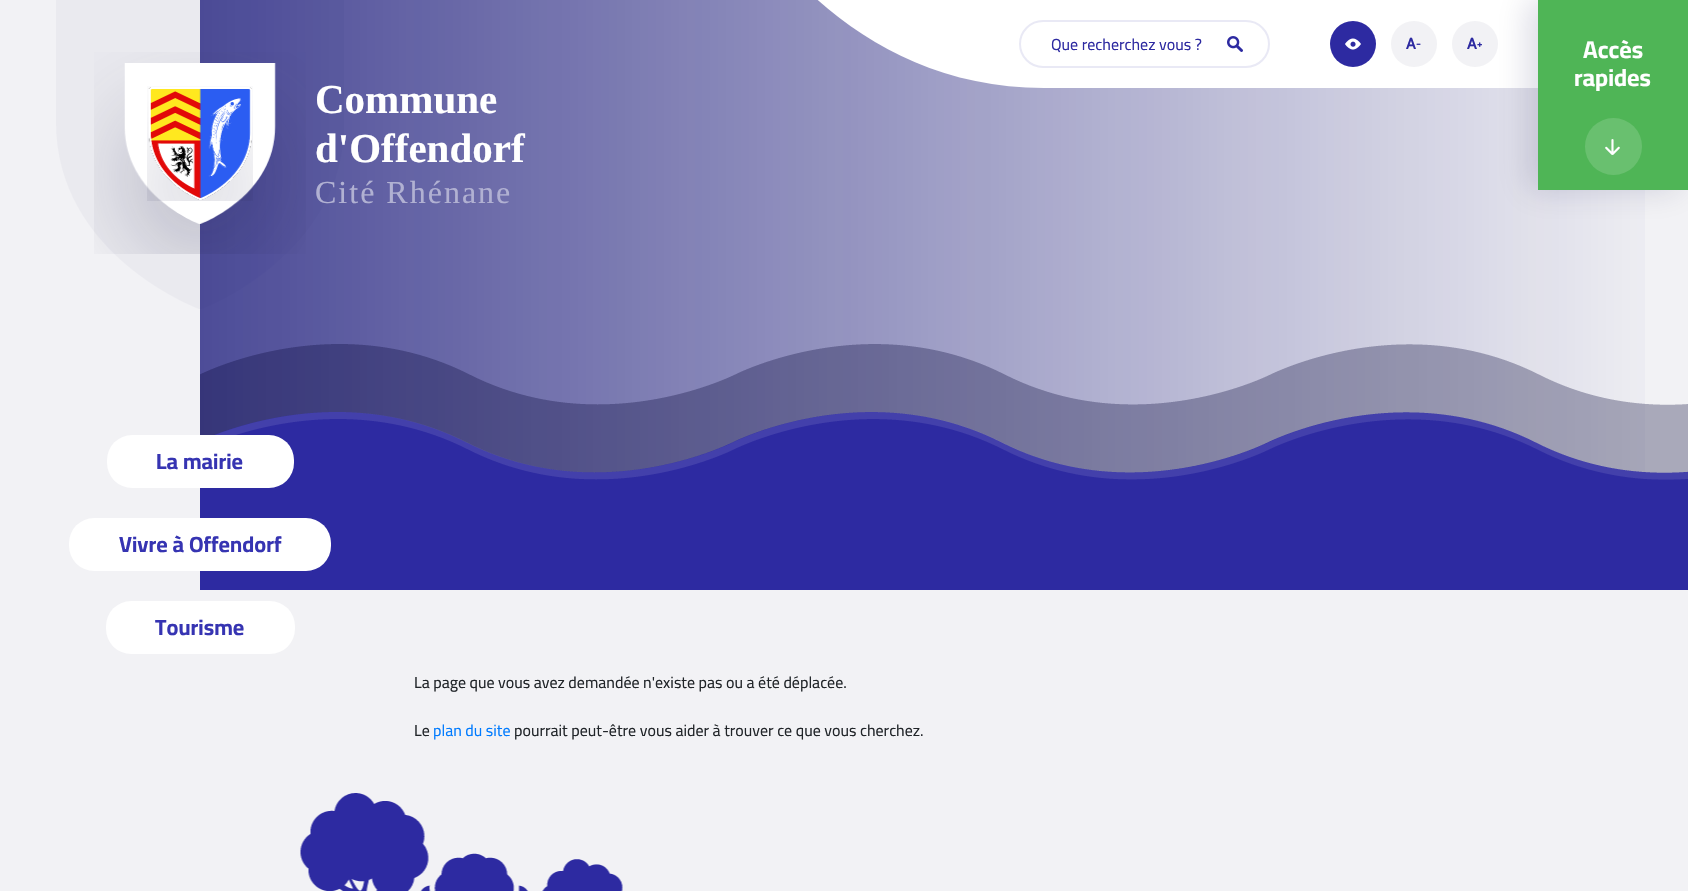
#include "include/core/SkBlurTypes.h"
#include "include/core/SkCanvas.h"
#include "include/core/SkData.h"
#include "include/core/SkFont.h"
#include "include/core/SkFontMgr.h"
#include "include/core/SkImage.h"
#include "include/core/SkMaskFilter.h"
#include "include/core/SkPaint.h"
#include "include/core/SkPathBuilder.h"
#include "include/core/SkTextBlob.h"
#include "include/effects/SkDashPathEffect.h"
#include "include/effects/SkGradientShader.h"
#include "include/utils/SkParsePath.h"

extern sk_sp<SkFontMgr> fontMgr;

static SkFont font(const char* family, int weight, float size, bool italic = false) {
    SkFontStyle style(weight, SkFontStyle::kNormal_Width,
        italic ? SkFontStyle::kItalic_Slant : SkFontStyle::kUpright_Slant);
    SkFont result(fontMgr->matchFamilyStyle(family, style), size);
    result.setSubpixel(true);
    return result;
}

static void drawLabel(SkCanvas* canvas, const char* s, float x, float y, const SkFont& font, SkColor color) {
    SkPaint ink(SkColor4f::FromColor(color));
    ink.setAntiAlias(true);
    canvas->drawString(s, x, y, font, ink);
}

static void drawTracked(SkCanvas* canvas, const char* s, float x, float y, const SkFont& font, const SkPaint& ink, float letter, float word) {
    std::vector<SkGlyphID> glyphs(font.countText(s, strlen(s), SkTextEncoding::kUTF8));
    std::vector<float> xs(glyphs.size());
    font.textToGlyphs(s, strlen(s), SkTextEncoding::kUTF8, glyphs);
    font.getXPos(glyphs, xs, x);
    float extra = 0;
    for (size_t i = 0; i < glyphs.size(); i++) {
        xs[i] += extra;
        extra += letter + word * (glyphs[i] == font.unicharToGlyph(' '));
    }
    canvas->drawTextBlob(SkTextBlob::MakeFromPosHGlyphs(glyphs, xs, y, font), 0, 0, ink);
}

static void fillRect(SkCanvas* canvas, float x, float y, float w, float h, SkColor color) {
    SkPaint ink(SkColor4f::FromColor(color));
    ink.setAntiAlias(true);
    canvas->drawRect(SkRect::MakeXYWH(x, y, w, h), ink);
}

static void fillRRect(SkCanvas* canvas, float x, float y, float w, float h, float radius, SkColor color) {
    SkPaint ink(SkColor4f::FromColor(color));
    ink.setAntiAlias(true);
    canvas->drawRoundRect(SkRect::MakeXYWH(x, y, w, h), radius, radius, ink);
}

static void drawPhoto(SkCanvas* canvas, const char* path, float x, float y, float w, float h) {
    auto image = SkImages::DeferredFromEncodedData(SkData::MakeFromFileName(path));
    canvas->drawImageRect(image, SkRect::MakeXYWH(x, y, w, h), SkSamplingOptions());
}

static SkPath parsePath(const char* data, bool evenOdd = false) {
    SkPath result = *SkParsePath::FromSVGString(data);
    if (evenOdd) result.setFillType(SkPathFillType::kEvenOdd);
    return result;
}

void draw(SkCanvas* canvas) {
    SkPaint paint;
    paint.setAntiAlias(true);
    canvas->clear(0xFFF2F2F5);
    drawPhoto(canvas, "assets/img1.png", 56, 0, 288, 309);
    {
        const SkColor colors[] = {0xBF151478, 0x00151478};
        const float stops[] = {0, 1};
        const SkPoint ends[] = {{200, 240}, {1688, 240}};
        paint.setShader(SkGradientShader::MakeLinear(ends, colors, stops, 2, SkTileMode::kClamp));
        paint.setAlpha(255);
    }
    canvas->drawRect(SkRect::MakeXYWH(200, 0, 1445, 473), paint);
    paint.setShader(nullptr);
    paint.setColor(0xFFFFFFFF);
    canvas->drawPath(parsePath("M1668-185V-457H1044C795-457 695-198 690-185V-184C695-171 795 88 1044 88H1668Z", true), paint);
    paint.setStroke(true);
    paint.setStrokeWidth(2);
    paint.setColor(0xFFE9E9F5);
    canvas->drawRoundRect(SkRect::MakeXYWH(1020, 21, 249, 46), 23, 23, paint);
    SkFont font1 = font("Cairo", 400, 16);
    drawLabel(canvas, "Que recherchez vous ?", 1051, 50, font1, 0xFF2D2AA1);
    drawPhoto(canvas, "assets/img2.png", 1227, 36, 16, 16);
    paint.setStroke(false);
    paint.setColor(0xFF2D2AA1);
    canvas->drawCircle(1353, 44, 23, paint);
    drawPhoto(canvas, "assets/img3.png", 1345, 38, 16, 12);
    paint.setColor(0xFFF2F2F5);
    canvas->drawCircle(1414, 44, 23, paint);
    SkFont font2 = font("Cabin", 700, 16);
    drawLabel(canvas, "A", 1406, 49, font2, 0xFF2D2AA1);
    SkFont font3 = font("Cabin", 700, 12);
    drawLabel(canvas, "-", 1416, 48, font3, 0xFF2D2AA1);
    canvas->drawCircle(1475, 44, 23, paint);
    drawLabel(canvas, "A", 1467, 49, font2, 0xFF2D2AA1);
    drawLabel(canvas, "+", 1477, 48, font3, 0xFF2D2AA1);
    SkFont font4 = font("Liberation Serif", 700, 41);
    drawLabel(canvas, "Commune", 315, 113, font4, 0xFFFFFFFF);
    drawLabel(canvas, "d'Offendorf", 315, 162, font4, 0xFFFFFFFF);
    SkFont font5 = font("Liberation Serif", 400, 32);
    paint.setColor(0xFFB1B1D2);
    drawTracked(canvas, "Cité Rhénane", 315, 203, font5, paint, 2, 0);
    drawPhoto(canvas, "assets/img4.png", 94, 52, 212, 202);
    drawPhoto(canvas, "assets/img5.png", 147, 86, 106, 115);
    drawPhoto(canvas, "assets/img7.png", 200, 344, 1488, 129);
    drawPhoto(canvas, "assets/img8.png", 214, 412, 1474, 68);
    drawPhoto(canvas, "assets/img9.png", 215, 412, 1473, 68);
    fillRect(canvas, 200, 480, 1488, 110, 0xFF2D2AA1);
    fillRRect(canvas, 107, 435, 187, 53, 25, 0xFFFFFFFF);
    SkFont font6 = font("Cairo", 700, 22);
    drawLabel(canvas, "La mairie", 156, 469, font6, 0xFF3634B2);
    fillRRect(canvas, 69, 518, 262, 53, 25, 0xFFFFFFFF);
    drawLabel(canvas, "Vivre à Offendorf", 119, 552, font6, 0xFF3634B2);
    fillRRect(canvas, 106, 601, 189, 53, 25, 0xFFFFFFFF);
    drawLabel(canvas, "Tourisme", 155, 635, font6, 0xFF3634B2);
    paint.setColor(0x260D0B4B);
    paint.setMaskFilter(SkMaskFilter::MakeBlur(kNormal_SkBlurStyle, 15));
    canvas->drawRect(SkRect::MakeXYWH(1528, 0, 150, 190), paint);
    paint.setMaskFilter(nullptr);
    fillRect(canvas, 1538, 0, 150, 190, 0xFF4FB556);
    SkFont font7 = font("Cairo", 700, 24);
    drawLabel(canvas, "Accès", 1583, 58, font7, 0xFFFFFFFF);
    drawLabel(canvas, "rapides", 1574, 86, font7, 0xFFFFFFFF);
    paint.setColor(0xFF69C06F);
    canvas->drawCircle(1613.5f, 146.5f, 28.5f, paint);
    drawPhoto(canvas, "assets/img6.png", 1605, 139, 15, 16);
    drawLabel(canvas, "La page que vous avez demandée n'existe pas ou a été déplacée.", 414, 688, font1, 0xFF212529);
    drawLabel(canvas, "Le", 414, 736, font1, 0xFF212529);
    drawLabel(canvas, "plan du site", 433, 736, font1, 0xFF007BFF);
    drawLabel(canvas, "pourrait peut-être vous aider à trouver ce que vous cherchez.", 514, 736, font1, 0xFF212529);
    drawPhoto(canvas, "assets/img10.png", 300, 793, 323, 98);
}
